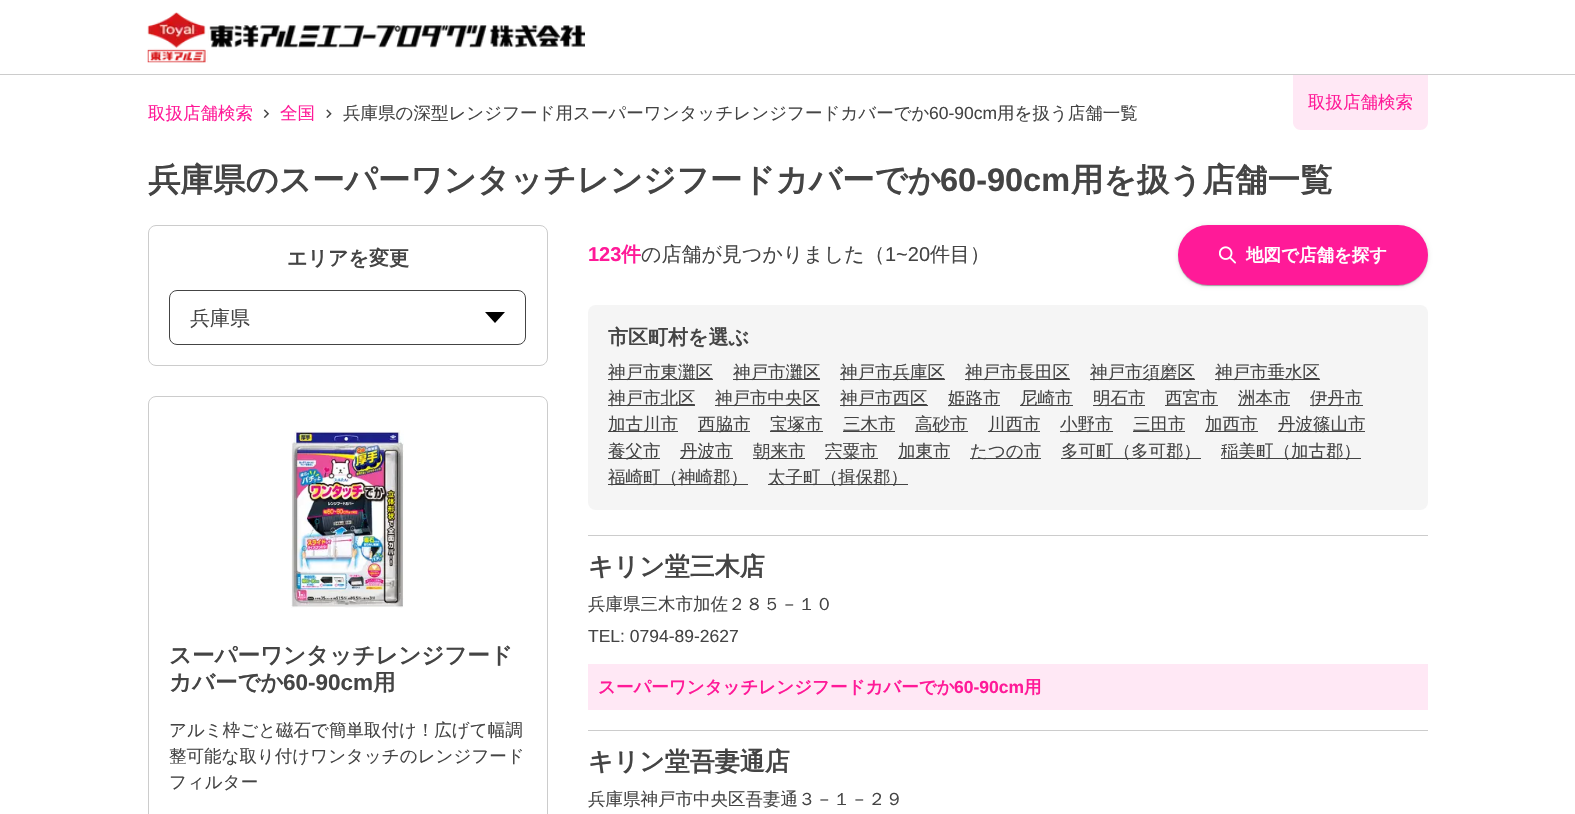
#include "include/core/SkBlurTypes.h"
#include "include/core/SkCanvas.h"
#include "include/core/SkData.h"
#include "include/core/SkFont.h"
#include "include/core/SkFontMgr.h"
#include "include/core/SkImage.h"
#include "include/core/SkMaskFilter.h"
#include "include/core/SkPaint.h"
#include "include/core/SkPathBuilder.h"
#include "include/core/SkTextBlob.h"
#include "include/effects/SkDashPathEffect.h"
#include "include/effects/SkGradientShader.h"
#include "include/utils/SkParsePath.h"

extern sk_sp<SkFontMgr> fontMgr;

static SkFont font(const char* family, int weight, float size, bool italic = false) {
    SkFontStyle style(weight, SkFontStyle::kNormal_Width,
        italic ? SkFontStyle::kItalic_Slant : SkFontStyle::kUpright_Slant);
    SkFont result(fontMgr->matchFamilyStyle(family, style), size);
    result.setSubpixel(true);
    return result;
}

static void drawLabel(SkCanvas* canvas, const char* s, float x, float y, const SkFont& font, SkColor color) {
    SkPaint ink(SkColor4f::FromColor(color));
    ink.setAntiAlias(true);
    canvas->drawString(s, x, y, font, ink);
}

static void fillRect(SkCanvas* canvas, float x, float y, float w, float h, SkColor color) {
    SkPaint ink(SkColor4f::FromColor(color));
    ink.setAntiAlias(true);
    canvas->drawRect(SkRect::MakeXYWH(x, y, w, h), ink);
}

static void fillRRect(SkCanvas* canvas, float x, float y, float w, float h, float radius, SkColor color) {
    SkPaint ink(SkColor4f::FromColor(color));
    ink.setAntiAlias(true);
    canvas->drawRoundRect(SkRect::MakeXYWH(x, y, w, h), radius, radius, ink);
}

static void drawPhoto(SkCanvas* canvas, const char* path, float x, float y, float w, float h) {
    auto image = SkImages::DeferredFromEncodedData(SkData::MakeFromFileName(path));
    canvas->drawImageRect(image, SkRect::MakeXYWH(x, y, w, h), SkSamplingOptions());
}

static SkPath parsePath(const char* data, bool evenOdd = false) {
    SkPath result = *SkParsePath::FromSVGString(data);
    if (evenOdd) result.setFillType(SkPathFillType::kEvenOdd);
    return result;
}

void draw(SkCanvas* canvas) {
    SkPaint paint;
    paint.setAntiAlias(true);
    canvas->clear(0xFFFFFFFF);
    fillRect(canvas, 0, 74, 1575, 1, 0xFFCCCCCC);
    drawPhoto(canvas, "assets/img1.png", 147, 12, 438, 51);
    paint.setColor(0xFFFFE8F5);
    canvas->drawPath(parsePath("M1293 75H1428V122C1428 126.5 1424.5 130 1420 130H1301C1296.5 130 1293 126.5 1293 122Z"), paint);
    SkFont font1 = font("WenQuanYi Zen Hei", 500, 17.5f);
    drawLabel(canvas, "取扱店舗検索", 1308, 108, font1, 0xFFFF1A98);
    drawLabel(canvas, "取扱店舗検索", 148, 119, font1, 0xFFFF1A98);
    drawPhoto(canvas, "assets/img2.png", 263, 109, 7, 9);
    drawLabel(canvas, "全国", 280, 119, font1, 0xFFFF1A98);
    drawPhoto(canvas, "assets/img3.png", 326, 109, 6, 9);
    drawLabel(canvas, "兵庫県の深型レンジフード用スーパーワンタッチレンジフードカバーでか", 343, 119, font1, 0xFF444444);
    SkFont font2 = font("Liberation Sans", 400, 17.5f);
    drawLabel(canvas, "60-90cm", 929, 119, font2, 0xFF444444);
    drawLabel(canvas, "用を扱う店舗一覧", 997, 119, font1, 0xFF444444);
    SkFont font3 = font("WenQuanYi Zen Hei", 700, 32.5f);
    drawLabel(canvas, "兵庫県のスーパーワンタッチレンジフードカバーでか", 148, 191, font3, 0xFF444444);
    SkFont font4 = font("Liberation Sans", 700, 32.5f);
    drawLabel(canvas, "60-90cm", 940, 191, font4, 0xFF444444);
    drawLabel(canvas, "用を扱う店舗一覧", 1071, 191, font3, 0xFF444444);
    paint.setStroke(true);
    paint.setStrokeWidth(1);
    paint.setColor(0xFFCCCCCC);
    canvas->drawRoundRect(SkRect::MakeXYWH(148.5f, 225.5f, 399, 140), 7.5f, 7.5f, paint);
    SkFont font5 = font("WenQuanYi Zen Hei", 700, 20);
    drawLabel(canvas, "エリアを変更", 287, 265, font5, 0xFF444444);
    paint.setColor(0xFF444444);
    canvas->drawRoundRect(SkRect::MakeXYWH(169.5f, 290.5f, 356, 54), 7.5f, 7.5f, paint);
    SkFont font6 = font("WenQuanYi Zen Hei", 500, 20);
    drawLabel(canvas, "兵庫県", 190, 325, font6, 0xFF444444);
    paint.setStroke(false);
    paint.setColor(0xFF000000);
    canvas->drawPath(parsePath("M495 323L485 312H505Z"), paint);
    paint.setStroke(true);
    paint.setColor(0xFFCCCCCC);
    canvas->drawRoundRect(SkRect::MakeXYWH(148.5f, 396.5f, 399, 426), 7.5f, 7.5f, paint);
    drawPhoto(canvas, "assets/img4.png", 291, 430, 113, 178);
    SkFont font7 = font("WenQuanYi Zen Hei", 700, 22.5f);
    drawLabel(canvas, "スーパーワンタッチレンジフード", 169, 663, font7, 0xFF444444);
    drawLabel(canvas, "カバーでか", 169, 690, font7, 0xFF444444);
    SkFont font8 = font("Liberation Sans", 700, 22.5f);
    drawLabel(canvas, "60-90cm", 283, 690, font8, 0xFF444444);
    drawLabel(canvas, "用", 373, 690, font7, 0xFF444444);
    drawLabel(canvas, "アルミ枠ごと磁石で簡単取付け！広げて幅調", 169, 736, font1, 0xFF444444);
    drawLabel(canvas, "整可能な取り付けワンタッチのレンジフード", 169, 762, font1, 0xFF444444);
    drawLabel(canvas, "フィルター", 169, 788, font1, 0xFF444444);
    SkFont font9 = font("Liberation Sans", 700, 20);
    drawLabel(canvas, "123", 588, 261, font9, 0xFFFF1A98);
    drawLabel(canvas, "件", 621, 261, font5, 0xFFFF1A98);
    drawLabel(canvas, "の店舗が見つかりました（", 641, 261, font6, 0xFF444444);
    SkFont font10 = font("Liberation Sans", 400, 20);
    drawLabel(canvas, "1~20", 885, 261, font10, 0xFF444444);
    drawLabel(canvas, "件目）", 930, 261, font6, 0xFF444444);
    paint.setStroke(false);
    paint.setColor(0x1F000000);
    paint.setMaskFilter(SkMaskFilter::MakeBlur(kNormal_SkBlurStyle, 2));
    canvas->drawRoundRect(SkRect::MakeXYWH(1178, 226, 250, 60), 30, 30, paint);
    paint.setMaskFilter(nullptr);
    paint.setColor(0x24000000);
    paint.setMaskFilter(SkMaskFilter::MakeBlur(kNormal_SkBlurStyle, 0.5f));
    canvas->drawRoundRect(SkRect::MakeXYWH(1178, 226, 250, 60), 30, 30, paint);
    paint.setMaskFilter(nullptr);
    paint.setColor(0x33000000);
    paint.setMaskFilter(SkMaskFilter::MakeBlur(kNormal_SkBlurStyle, 0.5f));
    canvas->drawRoundRect(SkRect::MakeXYWH(1179, 229, 247, 57), 28.5f, 28.5f, paint);
    paint.setMaskFilter(nullptr);
    fillRRect(canvas, 1178, 225, 250, 60, 30, 0xFFFF1A98);
    drawPhoto(canvas, "assets/img5.png", 1219, 246, 17, 18);
    SkFont font11 = font("WenQuanYi Zen Hei", 700, 17.5f);
    drawLabel(canvas, "地図で店舗を探す", 1246, 261, font11, 0xFFFFFFFF);
    fillRRect(canvas, 588, 305, 840, 205, 8, 0xFFF5F5F5);
    drawLabel(canvas, "市区町村を選ぶ", 608, 344, font5, 0xFF444444);
    fillRect(canvas, 608, 379, 105, 1, 0xFF444444);
    drawLabel(canvas, "神戸市東灘区", 608, 378, font1, 0xFF444444);
    fillRect(canvas, 733, 379, 87, 1, 0xFF444444);
    drawLabel(canvas, "神戸市灘区", 733, 378, font1, 0xFF444444);
    fillRect(canvas, 840, 379, 105, 1, 0xFF444444);
    drawLabel(canvas, "神戸市兵庫区", 840, 378, font1, 0xFF444444);
    fillRect(canvas, 965, 379, 105, 1, 0xFF444444);
    drawLabel(canvas, "神戸市長田区", 965, 378, font1, 0xFF444444);
    fillRect(canvas, 1090, 379, 105, 1, 0xFF444444);
    drawLabel(canvas, "神戸市須磨区", 1090, 378, font1, 0xFF444444);
    fillRect(canvas, 1215, 379, 105, 1, 0xFF444444);
    drawLabel(canvas, "神戸市垂水区", 1215, 378, font1, 0xFF444444);
    fillRect(canvas, 608, 405, 87, 1, 0xFF444444);
    drawLabel(canvas, "神戸市北区", 608, 404, font1, 0xFF444444);
    fillRect(canvas, 715, 405, 105, 1, 0xFF444444);
    drawLabel(canvas, "神戸市中央区", 715, 404, font1, 0xFF444444);
    fillRect(canvas, 840, 405, 88, 1, 0xFF444444);
    drawLabel(canvas, "神戸市西区", 840, 404, font1, 0xFF444444);
    fillRect(canvas, 948, 405, 52, 1, 0xFF444444);
    drawLabel(canvas, "姫路市", 948, 404, font1, 0xFF444444);
    fillRect(canvas, 1020, 405, 53, 1, 0xFF444444);
    drawLabel(canvas, "尼崎市", 1020, 404, font1, 0xFF444444);
    fillRect(canvas, 1093, 405, 52, 1, 0xFF444444);
    drawLabel(canvas, "明石市", 1093, 404, font1, 0xFF444444);
    fillRect(canvas, 1165, 405, 53, 1, 0xFF444444);
    drawLabel(canvas, "西宮市", 1165, 404, font1, 0xFF444444);
    fillRect(canvas, 1238, 405, 52, 1, 0xFF444444);
    drawLabel(canvas, "洲本市", 1238, 404, font1, 0xFF444444);
    fillRect(canvas, 1310, 405, 53, 1, 0xFF444444);
    drawLabel(canvas, "伊丹市", 1310, 404, font1, 0xFF444444);
    fillRect(canvas, 608, 431, 70, 1, 0xFF444444);
    drawLabel(canvas, "加古川市", 608, 430, font1, 0xFF444444);
    fillRect(canvas, 698, 431, 52, 1, 0xFF444444);
    drawLabel(canvas, "西脇市", 698, 430, font1, 0xFF444444);
    fillRect(canvas, 770, 431, 53, 1, 0xFF444444);
    drawLabel(canvas, "宝塚市", 770, 430, font1, 0xFF444444);
    fillRect(canvas, 843, 431, 52, 1, 0xFF444444);
    drawLabel(canvas, "三木市", 843, 430, font1, 0xFF444444);
    fillRect(canvas, 915, 431, 53, 1, 0xFF444444);
    drawLabel(canvas, "高砂市", 915, 430, font1, 0xFF444444);
    fillRect(canvas, 988, 431, 52, 1, 0xFF444444);
    drawLabel(canvas, "川西市", 988, 430, font1, 0xFF444444);
    fillRect(canvas, 1060, 431, 53, 1, 0xFF444444);
    drawLabel(canvas, "小野市", 1060, 430, font1, 0xFF444444);
    fillRect(canvas, 1133, 431, 52, 1, 0xFF444444);
    drawLabel(canvas, "三田市", 1133, 430, font1, 0xFF444444);
    fillRect(canvas, 1205, 431, 53, 1, 0xFF444444);
    drawLabel(canvas, "加西市", 1205, 430, font1, 0xFF444444);
    fillRect(canvas, 1278, 431, 87, 1, 0xFF444444);
    drawLabel(canvas, "丹波篠山市", 1278, 430, font1, 0xFF444444);
    fillRect(canvas, 608, 458, 52, 1, 0xFF444444);
    drawLabel(canvas, "養父市", 608, 457, font1, 0xFF444444);
    fillRect(canvas, 680, 458, 53, 1, 0xFF444444);
    drawLabel(canvas, "丹波市", 680, 457, font1, 0xFF444444);
    fillRect(canvas, 753, 458, 52, 1, 0xFF444444);
    drawLabel(canvas, "朝来市", 753, 457, font1, 0xFF444444);
    fillRect(canvas, 825, 458, 53, 1, 0xFF444444);
    drawLabel(canvas, "宍粟市", 825, 457, font1, 0xFF444444);
    fillRect(canvas, 898, 458, 52, 1, 0xFF444444);
    drawLabel(canvas, "加東市", 898, 457, font1, 0xFF444444);
    fillRect(canvas, 970, 458, 71, 1, 0xFF444444);
    drawLabel(canvas, "たつの市", 970, 457, font1, 0xFF444444);
    fillRect(canvas, 1061, 458, 140, 1, 0xFF444444);
    drawLabel(canvas, "多可町（多可郡）", 1061, 457, font1, 0xFF444444);
    fillRect(canvas, 1221, 458, 140, 1, 0xFF444444);
    drawLabel(canvas, "稲美町（加古郡）", 1221, 457, font1, 0xFF444444);
    fillRect(canvas, 608, 484, 140, 1, 0xFF444444);
    drawLabel(canvas, "福崎町（神崎郡）", 608, 483, font1, 0xFF444444);
    fillRect(canvas, 768, 484, 140, 1, 0xFF444444);
    drawLabel(canvas, "太子町（揖保郡）", 768, 483, font1, 0xFF444444);
    fillRect(canvas, 588, 535, 840, 1, 0xFFCCCCCC);
    fillRect(canvas, 588, 730, 840, 1, 0xFFCCCCCC);
    SkFont font12 = font("WenQuanYi Zen Hei", 700, 25);
    drawLabel(canvas, "キリン堂三木店", 588, 575, font12, 0xFF444444);
    drawLabel(canvas, "兵庫県三木市加佐２８５－１０", 588, 610, font1, 0xFF444444);
    drawLabel(canvas, "TEL: 0794-89-2627", 588, 642, font2, 0xFF444444);
    fillRect(canvas, 588, 664, 840, 46, 0xFFFFE8F5);
    drawLabel(canvas, "スーパーワンタッチレンジフードカバーでか", 598, 693, font11, 0xFFFF1A98);
    SkFont font13 = font("Liberation Sans", 700, 17.5f);
    drawLabel(canvas, "60-90cm", 954, 693, font13, 0xFFFF1A98);
    drawLabel(canvas, "用", 1024, 693, font11, 0xFFFF1A98);
    drawLabel(canvas, "キリン堂吾妻通店", 588, 770, font12, 0xFF444444);
    drawLabel(canvas, "兵庫県神戸市中央区吾妻通３－１－２９", 588, 805, font1, 0xFF444444);
}
